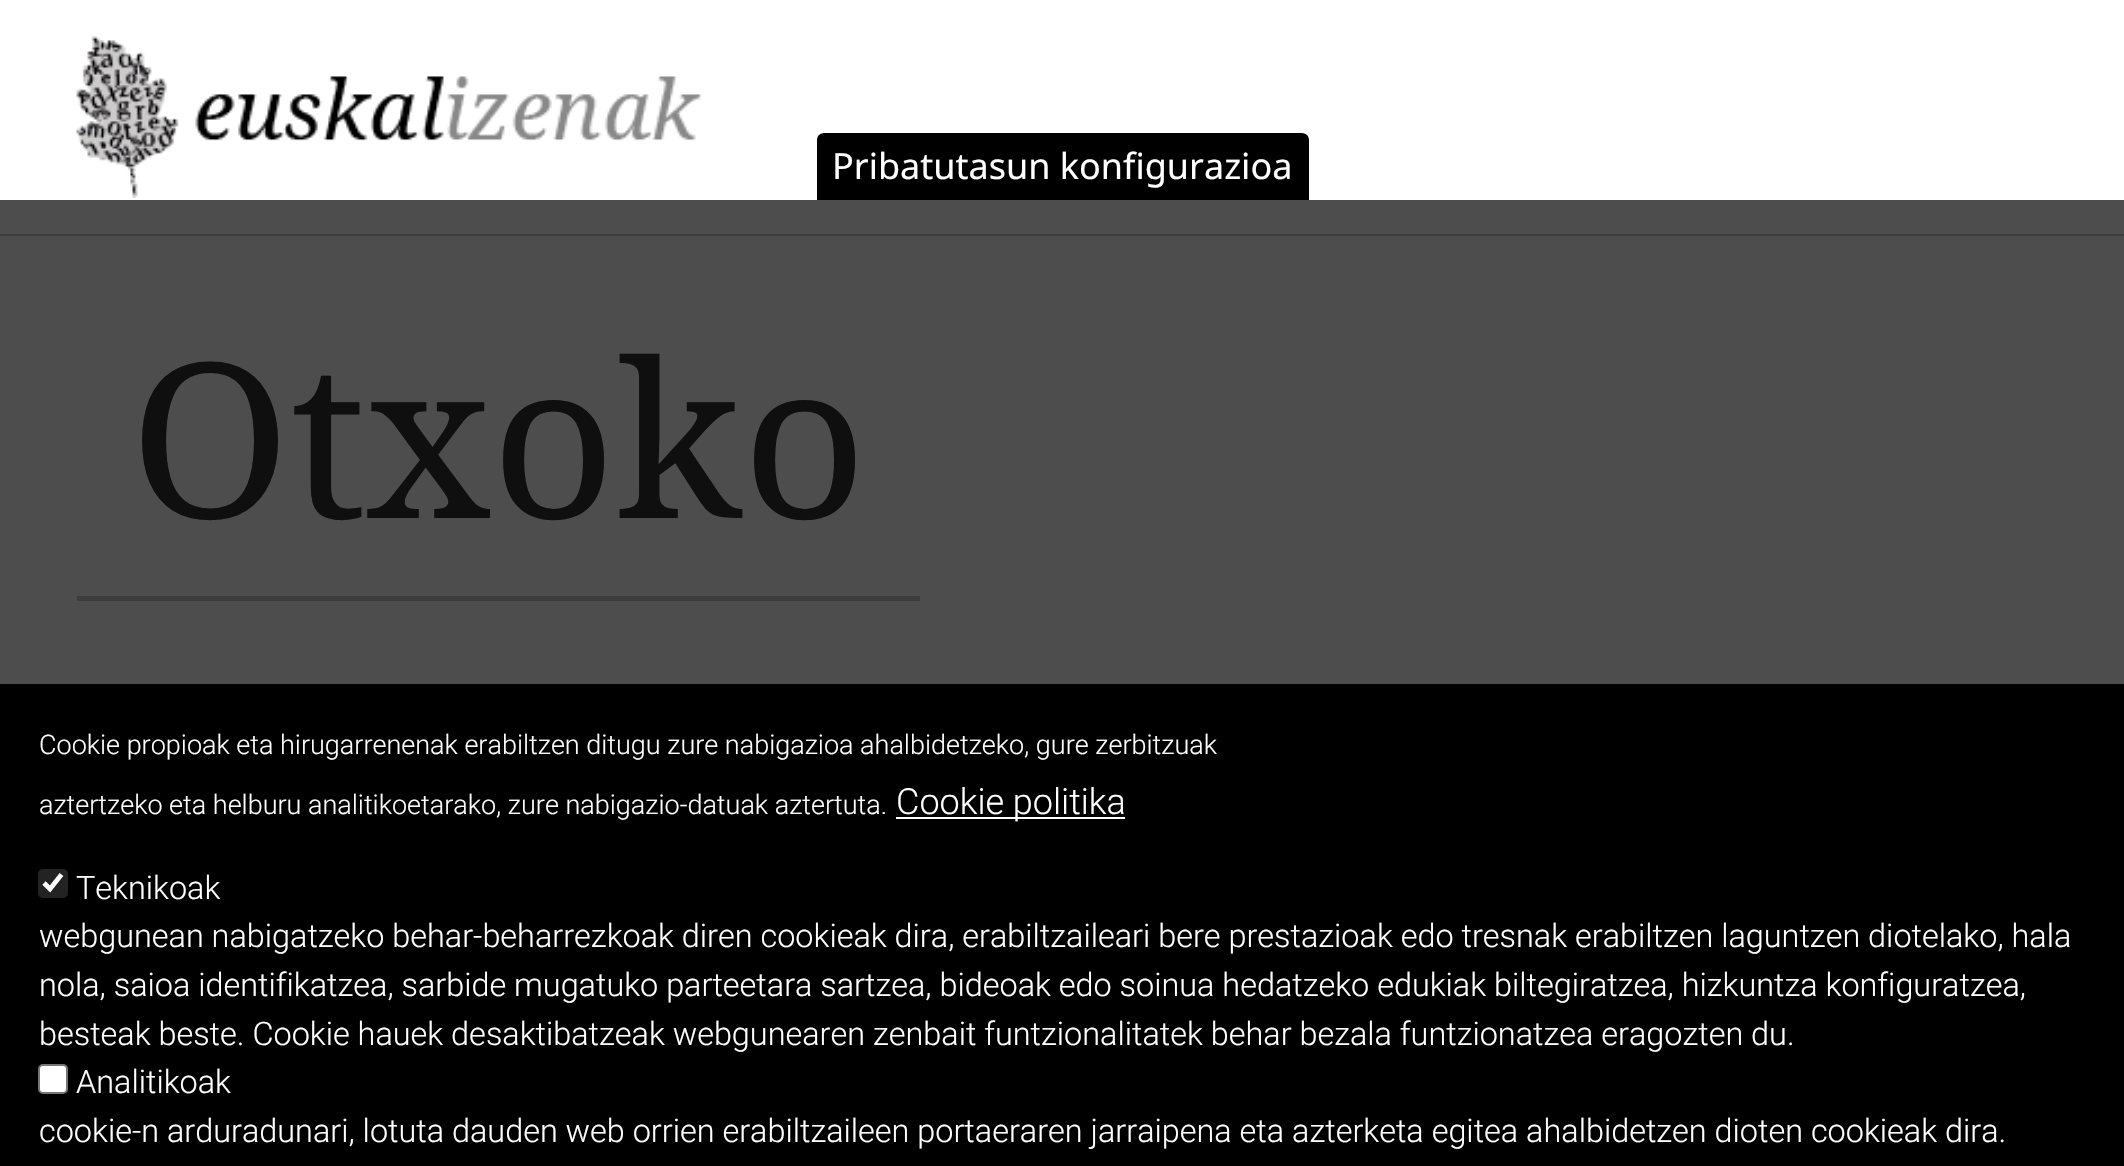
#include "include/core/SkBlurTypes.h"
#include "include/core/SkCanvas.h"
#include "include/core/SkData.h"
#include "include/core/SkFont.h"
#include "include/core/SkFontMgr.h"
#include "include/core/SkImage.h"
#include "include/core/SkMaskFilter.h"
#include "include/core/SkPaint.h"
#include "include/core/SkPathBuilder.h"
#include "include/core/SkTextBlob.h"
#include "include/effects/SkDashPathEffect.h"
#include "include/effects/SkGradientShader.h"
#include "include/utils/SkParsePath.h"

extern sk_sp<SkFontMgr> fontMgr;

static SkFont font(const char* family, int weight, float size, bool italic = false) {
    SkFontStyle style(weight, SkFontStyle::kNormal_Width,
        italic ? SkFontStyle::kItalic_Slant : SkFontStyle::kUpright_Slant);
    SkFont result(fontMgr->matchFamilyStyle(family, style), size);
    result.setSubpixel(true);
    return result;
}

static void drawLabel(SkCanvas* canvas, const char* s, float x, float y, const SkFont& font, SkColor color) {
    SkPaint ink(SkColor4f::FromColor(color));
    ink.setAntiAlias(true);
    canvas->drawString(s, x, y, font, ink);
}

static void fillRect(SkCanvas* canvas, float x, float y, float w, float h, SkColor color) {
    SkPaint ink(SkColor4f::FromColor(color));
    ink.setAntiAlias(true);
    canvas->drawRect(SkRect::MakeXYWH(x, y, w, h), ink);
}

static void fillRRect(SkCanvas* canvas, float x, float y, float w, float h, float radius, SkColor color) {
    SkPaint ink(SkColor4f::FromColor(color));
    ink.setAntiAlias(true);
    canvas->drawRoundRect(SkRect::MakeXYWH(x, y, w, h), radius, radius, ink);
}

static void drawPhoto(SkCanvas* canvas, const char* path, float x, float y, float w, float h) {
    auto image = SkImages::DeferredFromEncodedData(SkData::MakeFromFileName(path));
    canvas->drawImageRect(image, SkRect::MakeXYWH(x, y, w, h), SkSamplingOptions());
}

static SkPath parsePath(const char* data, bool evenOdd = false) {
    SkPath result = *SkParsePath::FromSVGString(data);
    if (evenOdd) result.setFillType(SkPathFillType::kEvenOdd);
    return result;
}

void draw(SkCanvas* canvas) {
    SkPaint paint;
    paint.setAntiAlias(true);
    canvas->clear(0xFFFFFFFF);
    fillRect(canvas, 0, 200, 2124, 484, 0xFF4D4D4D);
    paint.setColor(0xFF000000);
    canvas->drawPath(parsePath("M824 133H1303C1307 133 1310 136 1310 140V200H817V140C817 136 820 133 824 133Z"), paint);
    paint.setColor(0xFFFFFFFF);
    canvas->drawPath(parsePath("M823 128H1302C1308 128 1313 133 1313 140V200H812V140C812 133 817 128 823 128ZM823 133H1302C1306 133 1309 136 1309 140V200H816V140C816 136 819 133 823 133Z", true), paint);
    SkFont font1 = font("Noto Sans", 400, 36);
    drawLabel(canvas, "Pribatutasun konfigurazioa", 832, 179, font1, 0xFFFFFFFF);
    fillRect(canvas, 0, 684, 2124, 482, 0xFF000000);
    SkFont font2 = font("Roboto", 300, 27);
    drawLabel(canvas, "Cookie propioak eta hirugarrenenak erabiltzen ditugu zure nabigazioa ahalbidetzeko, gure zerbitzuak", 39, 754, font2, 0xFFFFFFFF);
    drawLabel(canvas, "aztertzeko eta helburu analitikoetarako, zure nabigazio-datuak aztertuta.", 39, 814, font2, 0xFFFFFFFF);
    fillRect(canvas, 896, 817, 229, 2, 0xFFFFFFFF);
    SkFont font3 = font("Roboto", 300, 36);
    drawLabel(canvas, "Cookie politika", 896, 814, font3, 0xFFFFFFFF);
    fillRRect(canvas, 38, 869, 30, 29, 5, 0xFF232323);
    paint.setStroke(true);
    paint.setStrokeWidth(4.7f);
    canvas->drawPath(parsePath("M44 883L50 889L61.5 874.5"), paint);
    SkFont font4 = font("Roboto", 300, 32.4f);
    drawLabel(canvas, "Teknikoak", 76, 899, font4, 0xFFFFFFFF);
    drawLabel(canvas, "webgunean nabigatzeko behar-beharrezkoak diren cookieak dira, erabiltzaileari bere prestazioak edo tresnak erabiltzen laguntzen diotelako, hala", 39, 947, font4, 0xFFFFFFFF);
    drawLabel(canvas, "nola, saioa identifikatzea, sarbide mugatuko parteetara sartzea, bideoak edo soinua hedatzeko edukiak biltegiratzea, hizkuntza konfiguratzea,", 39, 996, font4, 0xFFFFFFFF);
    drawLabel(canvas, "besteak beste. Cookie hauek desaktibatzeak webgunearen zenbait funtzionalitatek behar bezala funtzionatzea eragozten du.", 39, 1045, font4, 0xFFFFFFFF);
    paint.setStroke(false);
    canvas->drawRoundRect(SkRect::MakeXYWH(39, 1065, 28, 28), 4, 4, paint);
    paint.setStroke(true);
    paint.setStrokeWidth(2);
    paint.setColor(0xFF767676);
    canvas->drawRoundRect(SkRect::MakeXYWH(39, 1065, 28, 28), 4, 4, paint);
    drawLabel(canvas, "Analitikoak", 76, 1093, font4, 0xFFFFFFFF);
    drawLabel(canvas, "cookie-n arduradunari, lotuta dauden web orrien erabiltzaileen portaeraren jarraipena eta azterketa egitea ahalbidetzen dioten cookieak dira.", 39, 1142, font4, 0xFFFFFFFF);
    fillRect(canvas, 0, 234, 2124, 2, 0xFF3D3D3D);
    drawPhoto(canvas, "assets/img1.png", 76, 36, 626, 162);
    fillRect(canvas, 77, 596, 843, 5, 0xFF3D3D3D);
    SkFont font5 = font("Noto Serif", 400, 216);
    drawLabel(canvas, "Otxoko", 130, 518, font5, 0xFF0F0F0F);
}
